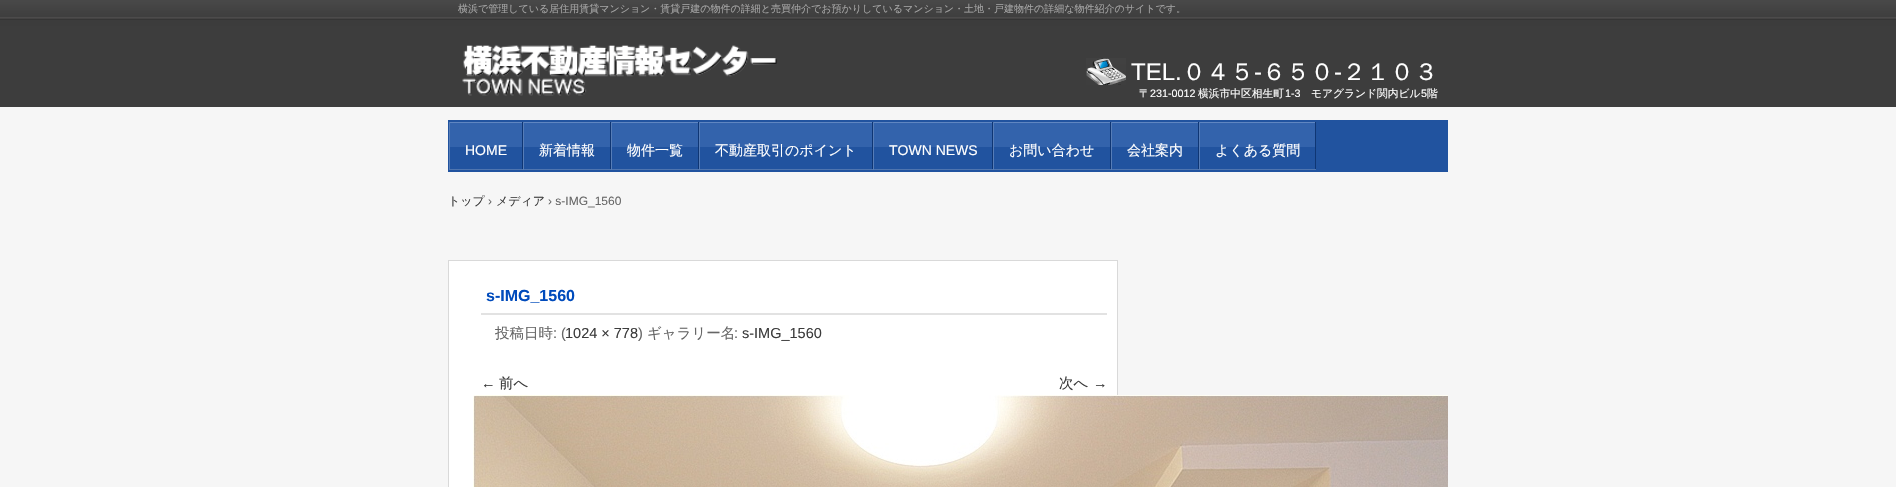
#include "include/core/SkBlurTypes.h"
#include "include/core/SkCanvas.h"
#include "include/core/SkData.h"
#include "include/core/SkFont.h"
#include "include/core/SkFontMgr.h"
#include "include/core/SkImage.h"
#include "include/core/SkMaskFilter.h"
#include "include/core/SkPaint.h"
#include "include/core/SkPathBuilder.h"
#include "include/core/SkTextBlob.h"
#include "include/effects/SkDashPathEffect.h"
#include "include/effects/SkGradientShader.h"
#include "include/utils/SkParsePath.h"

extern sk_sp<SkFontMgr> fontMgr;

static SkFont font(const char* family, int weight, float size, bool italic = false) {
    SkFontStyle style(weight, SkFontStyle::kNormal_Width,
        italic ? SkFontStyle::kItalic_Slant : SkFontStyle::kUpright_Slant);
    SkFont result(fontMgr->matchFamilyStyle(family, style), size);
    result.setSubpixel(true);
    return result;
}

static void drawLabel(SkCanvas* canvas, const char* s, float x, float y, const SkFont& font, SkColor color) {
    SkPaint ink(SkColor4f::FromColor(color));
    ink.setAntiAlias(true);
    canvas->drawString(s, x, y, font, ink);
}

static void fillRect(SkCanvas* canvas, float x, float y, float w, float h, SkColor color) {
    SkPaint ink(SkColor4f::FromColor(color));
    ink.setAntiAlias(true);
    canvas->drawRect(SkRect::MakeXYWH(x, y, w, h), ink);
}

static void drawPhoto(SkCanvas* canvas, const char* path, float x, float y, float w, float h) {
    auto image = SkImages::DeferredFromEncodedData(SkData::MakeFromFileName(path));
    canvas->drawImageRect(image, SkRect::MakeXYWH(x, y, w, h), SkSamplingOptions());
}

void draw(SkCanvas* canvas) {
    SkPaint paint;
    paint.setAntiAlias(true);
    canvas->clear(0xFFF6F6F6);
    drawPhoto(canvas, "assets/img1.png", 0, 0, 1896, 107);
    SkFont font1 = font("WenQuanYi Zen Hei", 500, 10);
    drawLabel(canvas, "横浜で管理している居住用賃貸マンション・賃貸戸建の物件の詳細と売買仲介でお預かりしているマンション・土地・戸建物件の詳細な物件紹介のサイトです。", 458, 12, font1, 0xFFA4A4A4);
    drawPhoto(canvas, "assets/img2.png", 462, 44, 315, 52);
    drawPhoto(canvas, "assets/img3.png", 1086, 58, 40, 27);
    SkFont font2 = font("Liberation Sans", 400, 24);
    drawLabel(canvas, "TEL.", 1131, 80, font2, 0xFFFFFFFF);
    SkFont font3 = font("WenQuanYi Zen Hei", 500, 24);
    drawLabel(canvas, "０４５", 1182, 80, font3, 0xFFFFFFFF);
    drawLabel(canvas, "-", 1254, 80, font2, 0xFFFFFFFF);
    drawLabel(canvas, "６５０", 1262, 80, font3, 0xFFFFFFFF);
    drawLabel(canvas, "-", 1334, 80, font2, 0xFFFFFFFF);
    drawLabel(canvas, "２１０３", 1342, 80, font3, 0xFFFFFFFF);
    SkFont font4 = font("WenQuanYi Zen Hei", 500, 10.75f);
    drawLabel(canvas, "〒", 1139, 97, font4, 0xFFFFFFFF);
    SkFont font5 = font("Liberation Sans", 400, 10.75f);
    drawLabel(canvas, "231-0012", 1150, 97, font5, 0xFFFFFFFF);
    drawLabel(canvas, "横浜市中区相生町", 1198, 97, font4, 0xFFFFFFFF);
    drawLabel(canvas, "1-3", 1285, 97, font5, 0xFFFFFFFF);
    drawLabel(canvas, "モアグランド関内ビル", 1311, 97, font4, 0xFFFFFFFF);
    drawLabel(canvas, "5", 1421, 97, font5, 0xFFFFFFFF);
    drawLabel(canvas, "階", 1427, 97, font4, 0xFFFFFFFF);
    fillRect(canvas, 448, 120, 1000, 52, 0xFF21539F);
    fillRect(canvas, 450, 123, 72, 24, 0xFF3363AC);
    fillRect(canvas, 449, 122, 867, 1, 0xFF6086C1);
    fillRect(canvas, 522, 122, 1, 48, 0xFF0F3674);
    fillRect(canvas, 449, 169, 74, 1, 0xFF4F75AF);
    fillRect(canvas, 449, 122, 1, 48, 0xFF577DB7);
    SkFont font6 = font("Liberation Sans", 400, 14);
    drawLabel(canvas, "HOME", 465, 155, font6, 0xFFFFFFFF);
    fillRect(canvas, 524, 123, 86, 24, 0xFF3363AC);
    fillRect(canvas, 610, 122, 1, 48, 0xFF0F3674);
    fillRect(canvas, 523, 169, 88, 1, 0xFF4F75AF);
    fillRect(canvas, 523, 122, 1, 48, 0xFF577DB7);
    SkFont font7 = font("WenQuanYi Zen Hei", 500, 14);
    drawLabel(canvas, "新着情報", 539, 155, font7, 0xFFFFFFFF);
    fillRect(canvas, 612, 123, 86, 24, 0xFF3363AC);
    fillRect(canvas, 698, 122, 1, 48, 0xFF0F3674);
    fillRect(canvas, 611, 169, 88, 1, 0xFF4F75AF);
    fillRect(canvas, 611, 122, 1, 48, 0xFF577DB7);
    drawLabel(canvas, "物件一覧", 627, 155, font7, 0xFFFFFFFF);
    fillRect(canvas, 700, 123, 172, 24, 0xFF3363AC);
    fillRect(canvas, 872, 122, 1, 48, 0xFF0F3674);
    fillRect(canvas, 699, 169, 174, 1, 0xFF4F75AF);
    fillRect(canvas, 699, 122, 1, 48, 0xFF577DB7);
    drawLabel(canvas, "不動産取引のポイント", 715, 155, font7, 0xFFFFFFFF);
    fillRect(canvas, 874, 123, 118, 24, 0xFF3363AC);
    fillRect(canvas, 992, 122, 1, 48, 0xFF0F3674);
    fillRect(canvas, 873, 169, 120, 1, 0xFF4F75AF);
    fillRect(canvas, 873, 122, 1, 48, 0xFF577DB7);
    drawLabel(canvas, "TOWN NEWS", 889, 155, font6, 0xFFFFFFFF);
    fillRect(canvas, 994, 123, 116, 24, 0xFF3363AC);
    fillRect(canvas, 1110, 122, 1, 48, 0xFF0F3674);
    fillRect(canvas, 993, 169, 118, 1, 0xFF4F75AF);
    fillRect(canvas, 993, 122, 1, 48, 0xFF577DB7);
    drawLabel(canvas, "お問い合わせ", 1009, 155, font7, 0xFFFFFFFF);
    fillRect(canvas, 1112, 123, 86, 24, 0xFF3363AC);
    fillRect(canvas, 1198, 122, 1, 48, 0xFF0F3674);
    fillRect(canvas, 1111, 169, 88, 1, 0xFF4F75AF);
    fillRect(canvas, 1111, 122, 1, 48, 0xFF577DB7);
    drawLabel(canvas, "会社案内", 1127, 155, font7, 0xFFFFFFFF);
    fillRect(canvas, 1200, 123, 115, 24, 0xFF3363AC);
    fillRect(canvas, 1315, 122, 1, 48, 0xFF0F3674);
    fillRect(canvas, 1199, 169, 117, 1, 0xFF4F75AF);
    fillRect(canvas, 1199, 122, 1, 48, 0xFF577DB7);
    drawLabel(canvas, "よくある質問", 1215, 155, font7, 0xFFFFFFFF);
    SkFont font8 = font("WenQuanYi Zen Hei", 500, 12);
    drawLabel(canvas, "トップ", 448, 205, font8, 0xFF3C3C3C);
    SkFont font9 = font("Liberation Sans", 400, 12);
    drawLabel(canvas, "›", 488, 205, font9, 0xFF666666);
    drawLabel(canvas, "メディア", 496, 205, font8, 0xFF3C3C3C);
    drawLabel(canvas, "› s-IMG_1560", 548, 205, font9, 0xFF666666);
    paint.setColor(0xFFFFFFFF);
    canvas->drawRect(SkRect::MakeXYWH(448.5f, 260.5f, 669, 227), paint);
    paint.setStroke(true);
    paint.setStrokeWidth(1);
    paint.setColor(0xFFD9D9D9);
    canvas->drawRect(SkRect::MakeXYWH(448.5f, 260.5f, 669, 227), paint);
    fillRect(canvas, 481, 313, 626, 2, 0xFFE2E2E2);
    SkFont font10 = font("Liberation Sans", 700, 16);
    drawLabel(canvas, "s-IMG_1560", 486, 301, font10, 0xFF004BBC);
    SkFont font11 = font("WenQuanYi Zen Hei", 500, 14.5f);
    drawLabel(canvas, "投稿日時", 495, 338, font11, 0xFF666666);
    SkFont font12 = font("Liberation Sans", 400, 14.5f);
    drawLabel(canvas, ": (", 553, 338, font12, 0xFF666666);
    drawLabel(canvas, "1024 × 778", 565, 338, font12, 0xFF3C3C3C);
    drawLabel(canvas, ")", 638, 338, font12, 0xFF666666);
    drawLabel(canvas, "ギャラリー名", 647, 338, font11, 0xFF666666);
    drawLabel(canvas, ":", 734, 338, font12, 0xFF666666);
    drawLabel(canvas, "s-IMG_1560", 742, 338, font12, 0xFF3C3C3C);
    drawLabel(canvas, "←", 481, 388, font12, 0xFF3C3C3C);
    drawLabel(canvas, "前へ", 499, 388, font11, 0xFF3C3C3C);
    drawLabel(canvas, "次へ", 1059, 388, font11, 0xFF3C3C3C);
    drawLabel(canvas, "→", 1093, 388, font12, 0xFF3C3C3C);
    drawPhoto(canvas, "assets/img4.png", 473, 395, 975, 92);
}
